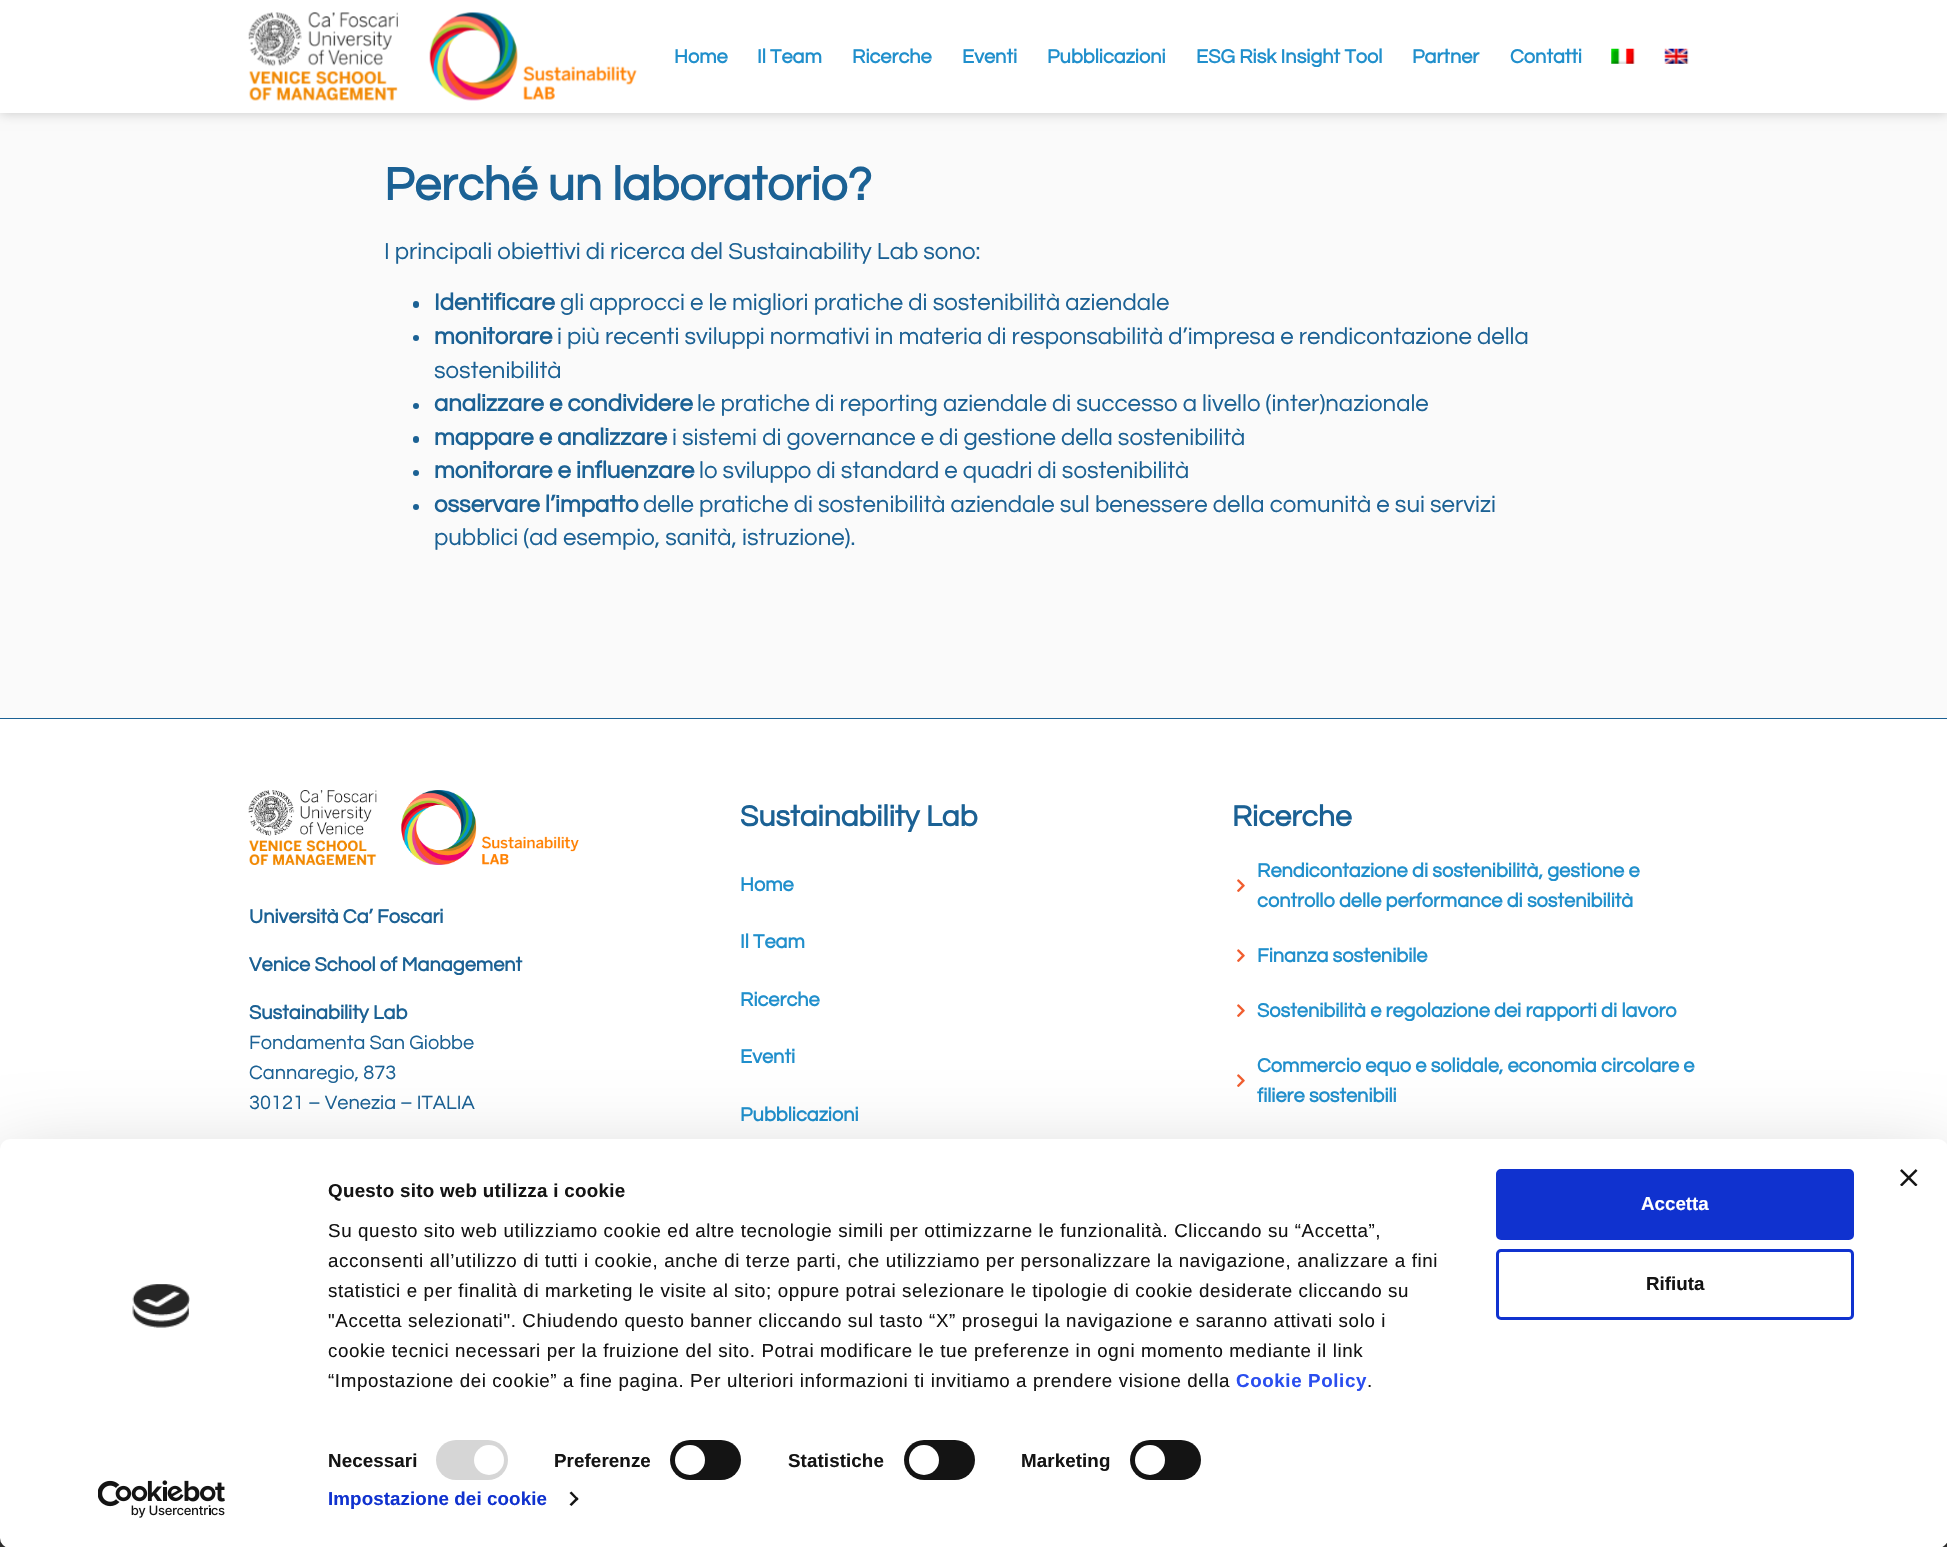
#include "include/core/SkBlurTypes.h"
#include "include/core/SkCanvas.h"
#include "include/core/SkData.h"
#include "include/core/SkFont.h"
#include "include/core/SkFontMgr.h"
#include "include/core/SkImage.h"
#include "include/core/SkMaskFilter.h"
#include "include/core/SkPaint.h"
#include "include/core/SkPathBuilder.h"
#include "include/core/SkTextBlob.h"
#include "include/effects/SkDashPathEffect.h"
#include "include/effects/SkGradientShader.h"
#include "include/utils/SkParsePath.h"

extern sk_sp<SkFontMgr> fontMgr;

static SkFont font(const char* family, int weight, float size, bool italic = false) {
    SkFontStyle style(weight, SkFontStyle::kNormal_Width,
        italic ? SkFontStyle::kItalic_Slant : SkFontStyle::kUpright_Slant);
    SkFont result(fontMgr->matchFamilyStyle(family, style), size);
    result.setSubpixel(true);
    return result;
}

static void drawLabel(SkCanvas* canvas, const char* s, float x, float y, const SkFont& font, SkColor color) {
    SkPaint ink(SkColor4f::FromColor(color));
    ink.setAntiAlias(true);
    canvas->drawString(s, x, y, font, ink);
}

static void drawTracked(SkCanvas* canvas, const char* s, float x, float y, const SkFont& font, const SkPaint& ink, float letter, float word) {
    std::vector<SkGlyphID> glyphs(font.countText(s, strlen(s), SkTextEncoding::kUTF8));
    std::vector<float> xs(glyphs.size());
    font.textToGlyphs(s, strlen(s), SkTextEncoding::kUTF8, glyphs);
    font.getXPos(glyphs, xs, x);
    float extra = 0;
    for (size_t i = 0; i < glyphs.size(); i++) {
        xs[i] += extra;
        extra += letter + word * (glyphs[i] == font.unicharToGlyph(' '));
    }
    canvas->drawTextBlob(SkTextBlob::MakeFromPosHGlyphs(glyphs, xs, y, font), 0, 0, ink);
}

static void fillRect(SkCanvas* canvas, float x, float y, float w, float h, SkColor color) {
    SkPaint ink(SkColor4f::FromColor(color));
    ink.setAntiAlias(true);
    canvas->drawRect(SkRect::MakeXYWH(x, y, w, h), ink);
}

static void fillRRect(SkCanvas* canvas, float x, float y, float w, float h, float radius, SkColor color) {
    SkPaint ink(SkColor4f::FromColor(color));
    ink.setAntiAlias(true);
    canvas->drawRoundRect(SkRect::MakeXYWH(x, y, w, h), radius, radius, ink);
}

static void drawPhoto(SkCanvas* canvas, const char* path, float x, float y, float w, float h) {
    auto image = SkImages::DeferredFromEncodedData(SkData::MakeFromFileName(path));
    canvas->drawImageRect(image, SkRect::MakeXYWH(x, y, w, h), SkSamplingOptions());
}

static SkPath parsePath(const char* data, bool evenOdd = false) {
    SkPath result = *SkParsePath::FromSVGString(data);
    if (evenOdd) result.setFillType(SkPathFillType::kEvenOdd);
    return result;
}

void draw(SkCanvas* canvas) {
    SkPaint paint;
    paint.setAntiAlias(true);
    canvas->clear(0xFFFFFFFF);
    fillRect(canvas, 0, 113, 1947, 605, 0xFFFAFAFA);
    paint.setColor(0x33000000);
    paint.setMaskFilter(SkMaskFilter::MakeBlur(kNormal_SkBlurStyle, 6));
    canvas->drawRect(SkRect::MakeXYWH(0, 0, 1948, 113), paint);
    paint.setMaskFilter(nullptr);
    fillRect(canvas, 0, 0, 1947, 113, 0xFFFFFFFF);
    drawPhoto(canvas, "assets/img1.png", 248, 12, 150, 89);
    drawPhoto(canvas, "assets/img2.png", 429, 12, 208, 89);
    SkFont font1 = font("Questrial", 700, 20);
    drawLabel(canvas, "Home", 674, 63, font1, 0xFF208FCC);
    drawLabel(canvas, "Il Team", 757, 63, font1, 0xFF208FCC);
    drawLabel(canvas, "Ricerche", 852, 63, font1, 0xFF208FCC);
    drawLabel(canvas, "Eventi", 962, 63, font1, 0xFF208FCC);
    drawLabel(canvas, "Pubblicazioni", 1047, 63, font1, 0xFF208FCC);
    drawLabel(canvas, "ESG Risk Insight Tool", 1196, 63, font1, 0xFF208FCC);
    drawLabel(canvas, "Partner", 1412, 63, font1, 0xFF208FCC);
    drawLabel(canvas, "Contatti", 1510, 63, font1, 0xFF208FCC);
    drawPhoto(canvas, "assets/img3.png", 1611, 48, 24, 16);
    drawPhoto(canvas, "assets/img4.png", 1664, 48, 25, 16);
    SkFont font2 = font("Questrial", 700, 48);
    drawLabel(canvas, "Perché un laboratorio?", 384, 200, font2, 0xFF1B6194);
    SkFont font3 = font("Questrial", 400, 24);
    drawLabel(canvas, "I principali obiettivi di ricerca del Sustainability Lab sono:", 384, 259, font3, 0xFF1B6194);
    fillRRect(canvas, 413, 301, 6, 7, 3, 0xFF1B6194);
    SkFont font4 = font("Questrial", 700, 24);
    drawLabel(canvas, "Identificare", 434, 310, font4, 0xFF1B6194);
    drawLabel(canvas, "gli approcci e le migliori pratiche di sostenibilità aziendale", 560, 310, font3, 0xFF1B6194);
    paint.setColor(0xFF1B6194);
    canvas->drawCircle(416, 338, 3, paint);
    drawLabel(canvas, "monitorare", 434, 344, font4, 0xFF1B6194);
    drawLabel(canvas, "i più recenti sviluppi normativi in materia di responsabilità d’impresa e rendicontazione della", 557, 344, font3, 0xFF1B6194);
    drawLabel(canvas, "sostenibilità", 434, 378, font3, 0xFF1B6194);
    canvas->drawCircle(416, 406, 3, paint);
    drawLabel(canvas, "analizzare e condividere", 434, 411, font4, 0xFF1B6194);
    drawLabel(canvas, "le pratiche di reporting aziendale di successo a livello (inter)nazionale", 697, 411, font3, 0xFF1B6194);
    fillRRect(canvas, 413, 436, 6, 7, 3, 0xFF1B6194);
    drawLabel(canvas, "mappare e analizzare", 434, 445, font4, 0xFF1B6194);
    drawLabel(canvas, "i sistemi di governance e di gestione della sostenibilità", 672, 445, font3, 0xFF1B6194);
    canvas->drawCircle(416, 473, 3, paint);
    drawLabel(canvas, "monitorare e influenzare", 434, 478, font4, 0xFF1B6194);
    drawLabel(canvas, "lo sviluppo di standard e quadri di sostenibilità", 699, 478, font3, 0xFF1B6194);
    canvas->drawCircle(416, 507, 3, paint);
    drawLabel(canvas, "osservare l’impatto", 434, 512, font4, 0xFF1B6194);
    drawLabel(canvas, "delle pratiche di sostenibilità aziendale sul benessere della comunità e sui servizi", 643, 512, font3, 0xFF1B6194);
    drawLabel(canvas, "pubblici (ad esempio, sanità, istruzione).", 434, 545, font3, 0xFF1B6194);
    fillRect(canvas, 0, 718, 1947, 1, 0xFF1B6194);
    drawPhoto(canvas, "assets/img5.png", 248, 790, 129, 75);
    drawPhoto(canvas, "assets/img6.png", 401, 790, 178, 75);
    drawLabel(canvas, "Università Ca’ Foscari", 249, 923, font1, 0xFF1B6194);
    drawLabel(canvas, "Venice School of Management", 249, 971, font1, 0xFF1B6194);
    drawLabel(canvas, "Sustainability Lab", 249, 1019, font1, 0xFF1B6194);
    SkFont font5 = font("Questrial", 400, 20);
    drawLabel(canvas, "Fondamenta San Giobbe", 249, 1049, font5, 0xFF1B6194);
    drawLabel(canvas, "Cannaregio, 873", 249, 1079, font5, 0xFF1B6194);
    drawLabel(canvas, "30121 – Venezia – ITALIA", 249, 1109, font5, 0xFF1B6194);
    SkFont font6 = font("Questrial", 700, 30);
    drawLabel(canvas, "Sustainability Lab", 740, 826, font6, 0xFF1B6194);
    drawLabel(canvas, "Home", 740, 891, font1, 0xFF208FCC);
    drawLabel(canvas, "Il Team", 740, 948, font1, 0xFF208FCC);
    drawLabel(canvas, "Ricerche", 740, 1006, font1, 0xFF208FCC);
    drawLabel(canvas, "Eventi", 740, 1063, font1, 0xFF208FCC);
    drawLabel(canvas, "Pubblicazioni", 740, 1121, font1, 0xFF208FCC);
    drawLabel(canvas, "Ricerche", 1232, 826, font6, 0xFF1B6194);
    drawPhoto(canvas, "assets/img7.png", 1237, 879, 8, 13);
    drawLabel(canvas, "Rendicontazione di sostenibilità, gestione e", 1257, 877, font1, 0xFF208FCC);
    drawLabel(canvas, "controllo delle performance di sostenibilità", 1257, 907, font1, 0xFF208FCC);
    drawPhoto(canvas, "assets/img7.png", 1237, 949, 8, 13);
    drawLabel(canvas, "Finanza sostenibile", 1257, 962, font1, 0xFF208FCC);
    drawPhoto(canvas, "assets/img7.png", 1237, 1004, 8, 13);
    drawLabel(canvas, "Sostenibilità e regolazione dei rapporti di lavoro", 1257, 1017, font1, 0xFF208FCC);
    drawPhoto(canvas, "assets/img7.png", 1237, 1074, 8, 13);
    drawLabel(canvas, "Commercio equo e solidale, economia circolare e", 1257, 1072, font1, 0xFF208FCC);
    drawLabel(canvas, "filiere sostenibili", 1257, 1102, font1, 0xFF208FCC);
    fillRect(canvas, 0, 1538, 1947, 9, 0xFF333333);
    paint.setColor(0x4D000000);
    paint.setMaskFilter(SkMaskFilter::MakeBlur(kNormal_SkBlurStyle, 44));
    canvas->drawRoundRect(SkRect::MakeXYWH(0, 1176, 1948, 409), 10, 10, paint);
    paint.setMaskFilter(nullptr);
    fillRRect(canvas, 0, 1139, 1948, 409, 10, 0xFFFFFFFF);
    drawPhoto(canvas, "assets/img8.png", 1900, 1169, 18, 17);
    SkFont font7 = font("Liberation Sans", 700, 18.75f);
    paint.setColor(0xFF141414);
    drawTracked(canvas, "Questo sito web utilizza i cookie", 328, 1197, font7, paint, 0.3f, 0);
    SkFont font8 = font("Liberation Sans", 400, 18.75f);
    drawTracked(canvas, "Su questo sito web utilizziamo cookie ed altre tecnologie simili per ottimizzarne le funzionalità. Cliccando su “Accetta”,", 328, 1237, font8, paint, 0.62f, 0);
    drawTracked(canvas, "acconsenti all’utilizzo di tutti i cookie, anche di terze parti, che utilizziamo per personalizzare la navigazione, analizzare a fini", 328, 1267, font8, paint, 0.62f, 0);
    drawTracked(canvas, "statistici e per finalità di marketing le visite al sito; oppure potrai selezionare le tipologie di cookie desiderate cliccando su", 328, 1297, font8, paint, 0.62f, 0);
    drawTracked(canvas, "\"Accetta selezionati\". Chiudendo questo banner cliccando sul tasto “X” prosegui la navigazione e saranno attivati solo i", 328, 1327, font8, paint, 0.62f, 0);
    drawTracked(canvas, "cookie tecnici necessari per la fruizione del sito. Potrai modificare le tue preferenze in ogni momento mediante il link", 328, 1357, font8, paint, 0.62f, 0);
    drawTracked(canvas, "“Impostazione dei cookie” a fine pagina. Per ulteriori informazioni ti invitiamo a prendere visione della", 328, 1387, font8, paint, 0.62f, 0);
    paint.setColor(0xFF2A4EEF);
    drawTracked(canvas, "Cookie Policy", 1236, 1387, font7, paint, 0.62f, 0);
    paint.setColor(0xFF141414);
    drawTracked(canvas, ".", 1367, 1387, font8, paint, 0.62f, 0);
    drawTracked(canvas, "Necessari", 328, 1467, font7, paint, 0.1f, 0);
    fillRRect(canvas, 436, 1440, 72, 40, 20, 0xFFD6D6D6);
    paint.setColor(0xFFFFFFFF);
    canvas->drawCircle(489, 1460, 15, paint);
    paint.setColor(0xFF141414);
    drawTracked(canvas, "Preferenze", 554, 1467, font7, paint, 0.1f, 0);
    fillRRect(canvas, 670, 1440, 71, 40, 20, 0xFF141414);
    paint.setColor(0xFFFFFFFF);
    canvas->drawCircle(690, 1460, 15, paint);
    paint.setColor(0xFF141414);
    drawTracked(canvas, "Statistiche", 788, 1467, font7, paint, 0.1f, 0);
    fillRRect(canvas, 904, 1440, 71, 40, 20, 0xFF141414);
    paint.setColor(0xFFFFFFFF);
    canvas->drawCircle(924, 1460, 15, paint);
    paint.setColor(0xFF141414);
    drawTracked(canvas, "Marketing", 1021, 1467, font7, paint, 0.1f, 0);
    fillRRect(canvas, 1130, 1440, 71, 40, 20, 0xFF141414);
    paint.setColor(0xFFFFFFFF);
    canvas->drawCircle(1150, 1460, 15, paint);
    paint.setColor(0xFF1032CF);
    drawTracked(canvas, "Impostazione dei cookie", 328, 1505, font7, paint, 0.1f, 0);
    paint.setColor(0xFF141414);
    canvas->drawPath(parsePath("M571.5 1491.5L578.5 1499L577 1500.5L569.5 1493Z"), paint);
    canvas->drawPath(parsePath("M577 1497L578.5 1499L571.5 1506L569.5 1504.5Z"), paint);
    paint.setColor(0xFF1032CF);
    canvas->drawRoundRect(SkRect::MakeXYWH(1497.5f, 1170.5f, 355, 68), 3.5f, 3.5f, paint);
    paint.setStroke(true);
    paint.setStrokeWidth(3);
    canvas->drawRoundRect(SkRect::MakeXYWH(1497.5f, 1170.5f, 355, 68), 3.5f, 3.5f, paint);
    drawLabel(canvas, "Accetta", 1641, 1210, font7, 0xFFFFFFFF);
    canvas->drawRoundRect(SkRect::MakeXYWH(1497.5f, 1250.5f, 355, 68), 3.5f, 3.5f, paint);
    drawLabel(canvas, "Rifiuta", 1646, 1290, font7, 0xFF141414);
    drawPhoto(canvas, "assets/img9.png", 132, 1284, 58, 44);
    drawPhoto(canvas, "assets/img10.png", 98, 1480, 127, 38);
}
